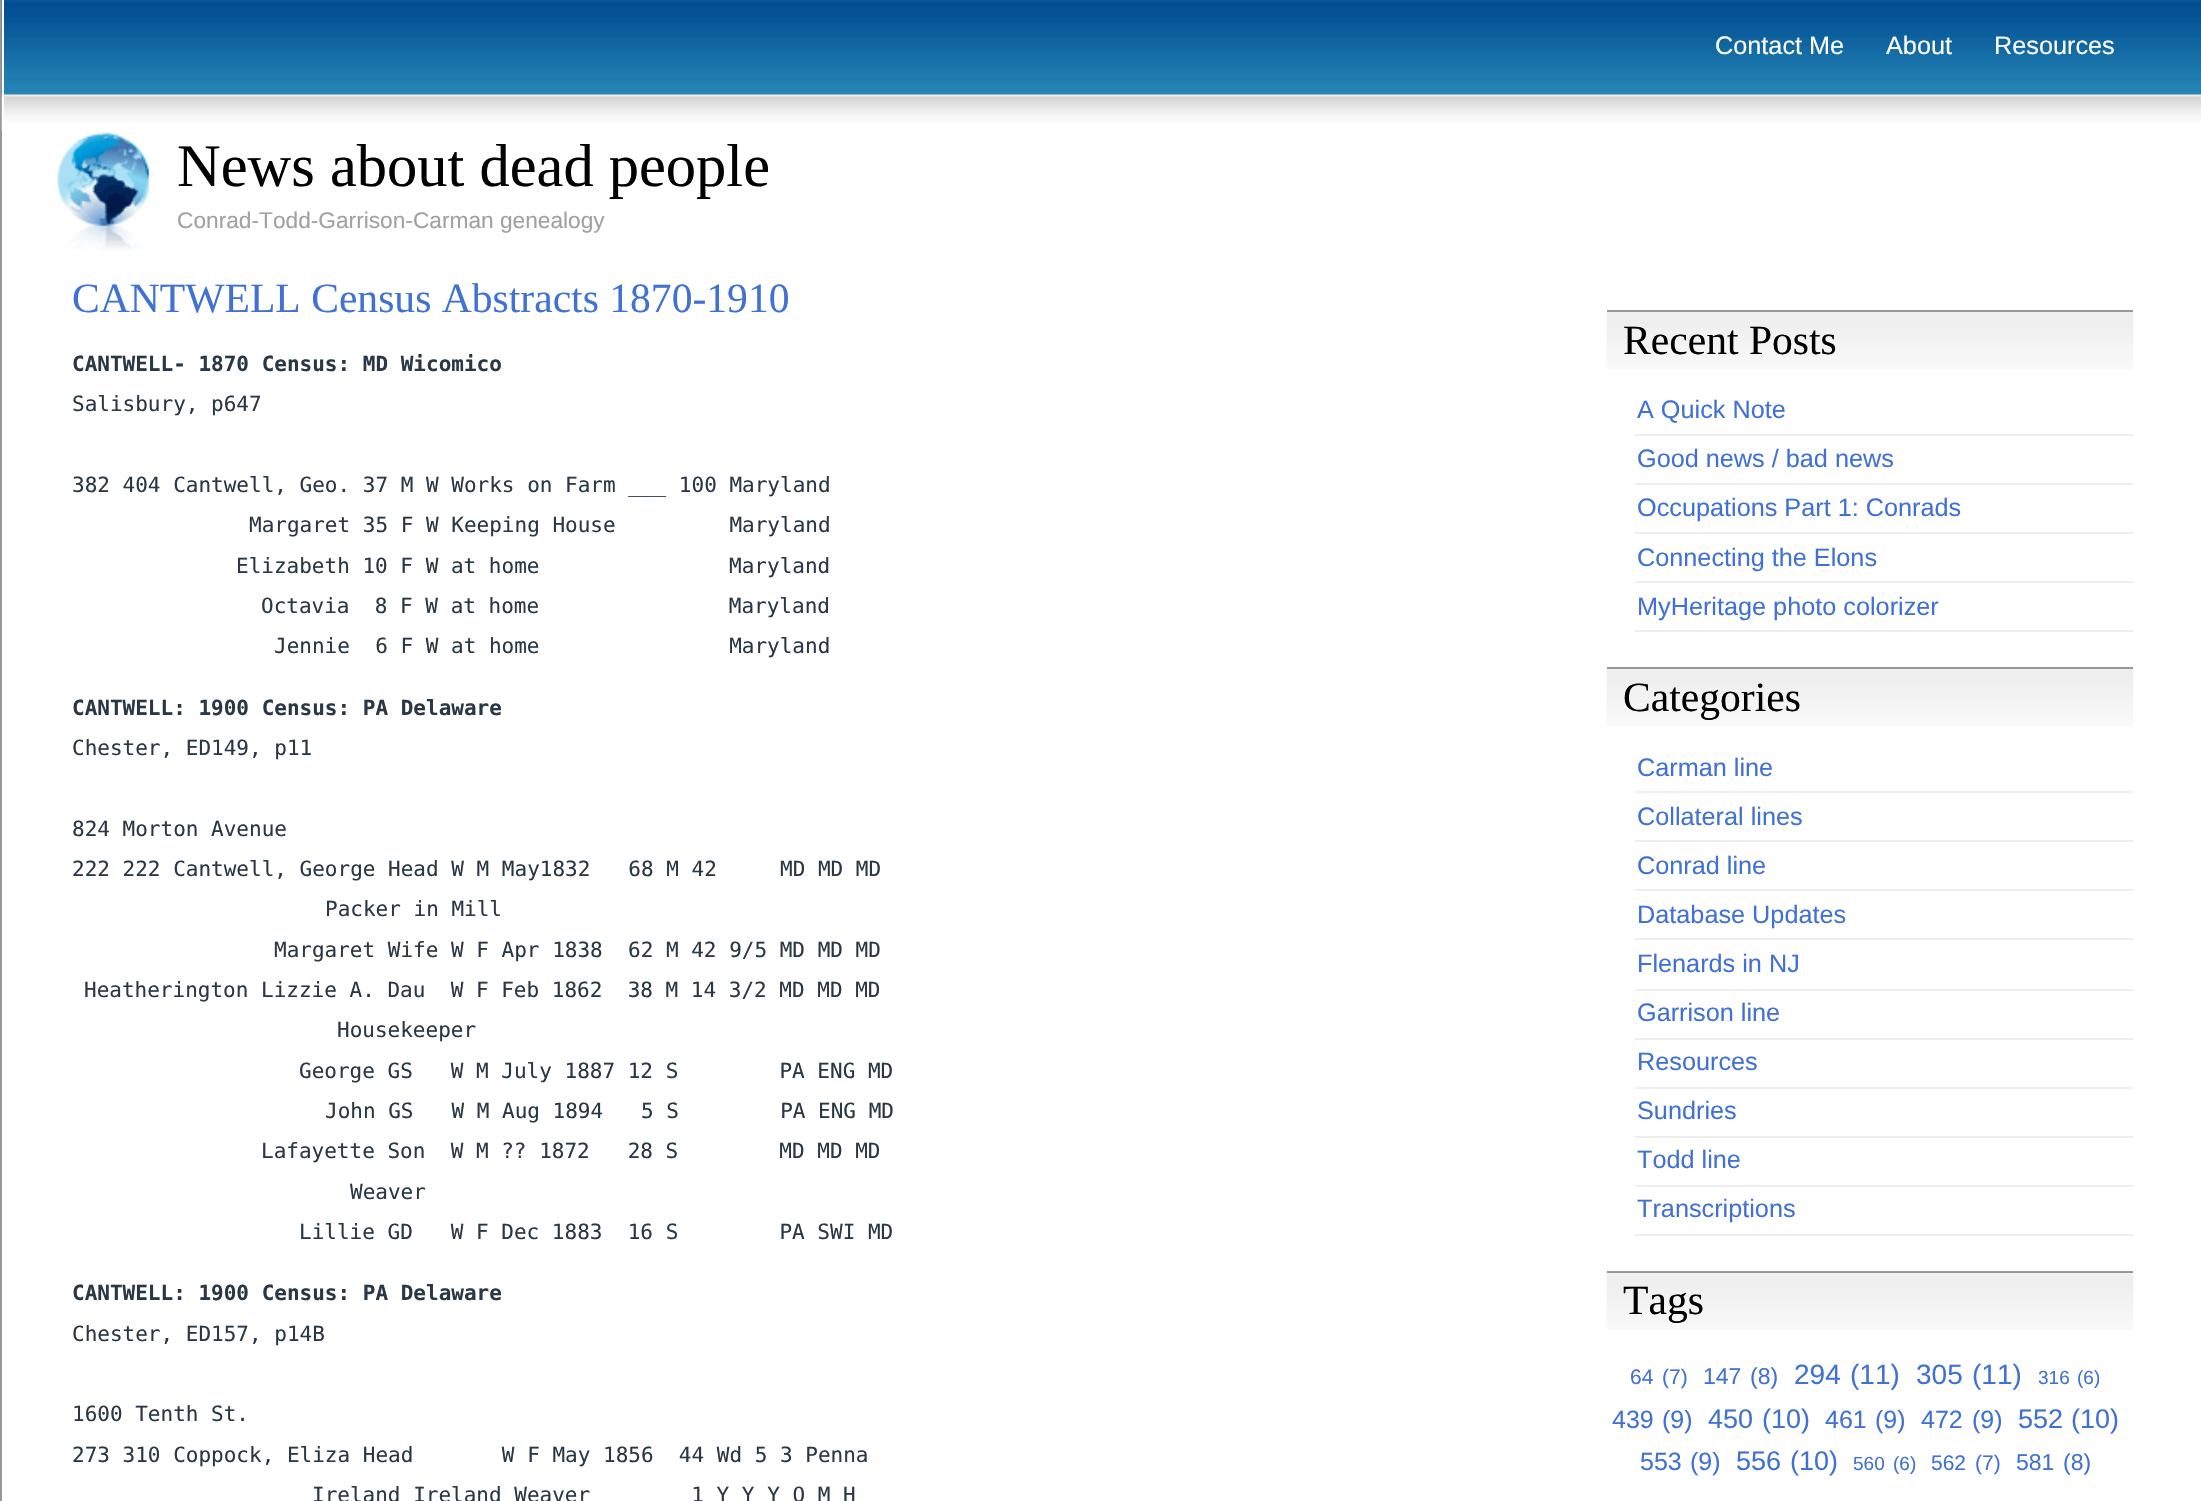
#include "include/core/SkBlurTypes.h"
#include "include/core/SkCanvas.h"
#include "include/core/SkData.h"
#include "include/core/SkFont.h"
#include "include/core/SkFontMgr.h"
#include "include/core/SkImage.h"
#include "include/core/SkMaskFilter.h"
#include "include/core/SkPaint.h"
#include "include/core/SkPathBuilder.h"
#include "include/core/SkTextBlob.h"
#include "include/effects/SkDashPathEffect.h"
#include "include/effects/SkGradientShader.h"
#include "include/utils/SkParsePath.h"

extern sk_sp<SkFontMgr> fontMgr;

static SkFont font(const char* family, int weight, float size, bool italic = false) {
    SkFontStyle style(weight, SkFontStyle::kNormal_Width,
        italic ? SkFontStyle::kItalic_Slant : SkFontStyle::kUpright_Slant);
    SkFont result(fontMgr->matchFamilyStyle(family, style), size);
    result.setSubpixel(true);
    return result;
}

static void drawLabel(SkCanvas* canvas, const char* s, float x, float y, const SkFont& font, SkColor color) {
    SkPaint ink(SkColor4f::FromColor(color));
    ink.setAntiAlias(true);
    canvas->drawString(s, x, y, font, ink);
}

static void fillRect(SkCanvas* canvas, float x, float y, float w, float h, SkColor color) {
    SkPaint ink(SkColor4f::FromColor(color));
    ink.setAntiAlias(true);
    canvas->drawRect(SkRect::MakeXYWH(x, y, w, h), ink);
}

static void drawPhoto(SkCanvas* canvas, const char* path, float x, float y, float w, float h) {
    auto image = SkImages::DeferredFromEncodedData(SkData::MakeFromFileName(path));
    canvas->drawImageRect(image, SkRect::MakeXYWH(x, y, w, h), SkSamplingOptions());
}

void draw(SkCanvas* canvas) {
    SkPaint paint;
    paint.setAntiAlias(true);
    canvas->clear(0xFFFFFFFF);
    fillRect(canvas, 0, 0, 2, 1501, 0xFF999999);
    drawPhoto(canvas, "assets/img1.png", 1, 0, 2200, 132);
    fillRect(canvas, 2, 0, 2, 123, 0xFFFFFFFF);
    SkFont font1 = font("Liberation Sans", 400, 25.25f);
    drawLabel(canvas, "Contact Me", 1715, 54, font1, 0xFFFFFFFF);
    drawLabel(canvas, "About", 1886, 54, font1, 0xFFFFFFFF);
    drawLabel(canvas, "Resources", 1994, 54, font1, 0xFFFFFFFF);
    drawPhoto(canvas, "assets/img2.png", 57, 132, 93, 119);
    SkFont font2 = font("Liberation Serif", 400, 60.5f);
    drawLabel(canvas, "News about dead people", 177, 186, font2, 0xFF000000);
    SkFont font3 = font("Liberation Sans", 400, 22.7f);
    drawLabel(canvas, "Conrad-Todd-Garrison-Carman genealogy", 177, 228, font3, 0xFFA1A1A1);
    SkFont font4 = font("Liberation Serif", 400, 41.6f);
    drawLabel(canvas, "CANTWELL Census Abstracts 1870-1910", 72, 312, font4, 0xFF4071D3);
    SkFont font5 = font("DejaVu Sans Mono", 700, 21);
    drawLabel(canvas, "CANTWELL- 1870 Census: MD Wicomico", 72, 371, font5, 0xFF2A3845);
    SkFont font6 = font("DejaVu Sans Mono", 400, 21);
    drawLabel(canvas, "Salisbury, p647", 72, 411, font6, 0xFF2A3845);
    drawLabel(canvas, "382 404 Cantwell, Geo. 37 M W Works on Farm ___ 100 Maryland", 72, 492, font6, 0xFF2A3845);
    drawLabel(canvas, "Margaret 35 F W Keeping House         Maryland", 249, 532, font6, 0xFF2A3845);
    drawLabel(canvas, "Elizabeth 10 F W at home               Maryland", 236, 573, font6, 0xFF2A3845);
    drawLabel(canvas, "Octavia  8 F W at home               Maryland", 261, 613, font6, 0xFF2A3845);
    drawLabel(canvas, "Jennie  6 F W at home               Maryland", 274, 653, font6, 0xFF2A3845);
    drawLabel(canvas, "CANTWELL: 1900 Census: PA Delaware", 72, 715, font5, 0xFF2A3845);
    drawLabel(canvas, "Chester, ED149, p11", 72, 755, font6, 0xFF2A3845);
    drawLabel(canvas, "824 Morton Avenue", 72, 836, font6, 0xFF2A3845);
    drawLabel(canvas, "222 222 Cantwell, George Head W M May1832   68 M 42     MD MD MD", 72, 876, font6, 0xFF2A3845);
    drawLabel(canvas, "Packer in Mill", 325, 916, font6, 0xFF2A3845);
    drawLabel(canvas, "Margaret Wife W F Apr 1838  62 M 42 9/5 MD MD MD", 274, 957, font6, 0xFF2A3845);
    drawLabel(canvas, "Heatherington Lizzie A. Dau  W F Feb 1862  38 M 14 3/2 MD MD MD", 84, 997, font6, 0xFF2A3845);
    drawLabel(canvas, "Housekeeper", 337, 1037, font6, 0xFF2A3845);
    drawLabel(canvas, "George GS   W M July 1887 12 S        PA ENG MD", 299, 1078, font6, 0xFF2A3845);
    drawLabel(canvas, "John GS   W M Aug 1894   5 S        PA ENG MD", 325, 1118, font6, 0xFF2A3845);
    drawLabel(canvas, "Lafayette Son  W M ?\077 1872   28 S        MD MD MD", 261, 1158, font6, 0xFF2A3845);
    drawLabel(canvas, "Weaver", 350, 1199, font6, 0xFF2A3845);
    drawLabel(canvas, "Lillie GD   W F Dec 1883  16 S        PA SWI MD", 299, 1239, font6, 0xFF2A3845);
    drawLabel(canvas, "CANTWELL: 1900 Census: PA Delaware", 72, 1300, font5, 0xFF2A3845);
    drawLabel(canvas, "Chester, ED157, p14B", 72, 1341, font6, 0xFF2A3845);
    drawLabel(canvas, "1600 Tenth St.", 72, 1421, font6, 0xFF2A3845);
    drawLabel(canvas, "273 310 Coppock, Eliza Head       W F May 1856  44 Wd 5 3 Penna", 72, 1462, font6, 0xFF2A3845);
    drawLabel(canvas, "Ireland Ireland Weaver        1 Y Y Y O M H", 312, 1502, font6, 0xFF2A3845);
    fillRect(canvas, 1607, 367, 526, 2, 0xFFF9F9F9);
    drawPhoto(canvas, "assets/img3.png", 1606, 311, 528, 56);
    fillRect(canvas, 1607, 310, 526, 2, 0xFF999999);
    drawLabel(canvas, "Recent Posts", 1623, 354, font4, 0xFF000000);
    fillRect(canvas, 1635, 434, 498, 2, 0xFFEEEEEE);
    drawLabel(canvas, "A Quick Note", 1637, 418, font1, 0xFF4071D3);
    fillRect(canvas, 1635, 483, 498, 2, 0xFFEEEEEE);
    drawLabel(canvas, "Good news / bad news", 1637, 467, font1, 0xFF4071D3);
    fillRect(canvas, 1635, 532, 498, 2, 0xFFEEEEEE);
    drawLabel(canvas, "Occupations Part 1: Conrads", 1637, 516, font1, 0xFF4071D3);
    fillRect(canvas, 1635, 581, 498, 2, 0xFFEEEEEE);
    drawLabel(canvas, "Connecting the Elons", 1637, 566, font1, 0xFF4071D3);
    fillRect(canvas, 1635, 630, 498, 2, 0xFFEEEEEE);
    drawLabel(canvas, "MyHeritage photo colorizer", 1637, 615, font1, 0xFF4071D3);
    fillRect(canvas, 1607, 724, 526, 2, 0xFFF9F9F9);
    drawPhoto(canvas, "assets/img3.png", 1606, 668, 528, 56);
    fillRect(canvas, 1607, 667, 526, 2, 0xFF999999);
    drawLabel(canvas, "Categories", 1623, 711, font4, 0xFF000000);
    fillRect(canvas, 1635, 791, 498, 2, 0xFFEEEEEE);
    drawLabel(canvas, "Carman line", 1637, 776, font1, 0xFF4071D3);
    fillRect(canvas, 1635, 840, 498, 2, 0xFFEEEEEE);
    drawLabel(canvas, "Collateral lines", 1637, 825, font1, 0xFF4071D3);
    fillRect(canvas, 1635, 889, 498, 2, 0xFFEEEEEE);
    drawLabel(canvas, "Conrad line", 1637, 874, font1, 0xFF4071D3);
    fillRect(canvas, 1635, 938, 498, 2, 0xFFEEEEEE);
    drawLabel(canvas, "Database Updates", 1637, 923, font1, 0xFF4071D3);
    fillRect(canvas, 1635, 989, 498, 2, 0xFFEEEEEE);
    drawLabel(canvas, "Flenards in NJ", 1637, 972, font1, 0xFF4071D3);
    fillRect(canvas, 1635, 1038, 498, 2, 0xFFEEEEEE);
    drawLabel(canvas, "Garrison line", 1637, 1021, font1, 0xFF4071D3);
    fillRect(canvas, 1635, 1087, 498, 2, 0xFFEEEEEE);
    drawLabel(canvas, "Resources", 1637, 1070, font1, 0xFF4071D3);
    fillRect(canvas, 1635, 1136, 498, 2, 0xFFEEEEEE);
    drawLabel(canvas, "Sundries", 1637, 1119, font1, 0xFF4071D3);
    fillRect(canvas, 1635, 1185, 498, 2, 0xFFEEEEEE);
    drawLabel(canvas, "Todd line", 1637, 1168, font1, 0xFF4071D3);
    fillRect(canvas, 1635, 1234, 498, 2, 0xFFEEEEEE);
    drawLabel(canvas, "Transcriptions", 1637, 1217, font1, 0xFF4071D3);
    fillRect(canvas, 1607, 1327, 526, 3, 0xFFF9F9F9);
    drawPhoto(canvas, "assets/img4.png", 1606, 1272, 528, 55);
    fillRect(canvas, 1607, 1271, 526, 2, 0xFF999999);
    drawLabel(canvas, "Tags", 1623, 1314, font4, 0xFF000000);
    SkFont font7 = font("Liberation Sans", 400, 21);
    drawLabel(canvas, "64", 1630, 1384, font7, 0xFF4071D3);
    drawLabel(canvas, "(7)", 1662, 1384, font7, 0xFF4071D3);
    SkFont font8 = font("Liberation Sans", 400, 23);
    drawLabel(canvas, "147", 1703, 1384, font8, 0xFF4071D3);
    drawLabel(canvas, "(8)", 1750, 1384, font8, 0xFF4071D3);
    SkFont font9 = font("Liberation Sans", 400, 28);
    drawLabel(canvas, "294", 1794, 1384, font9, 0xFF4071D3);
    drawLabel(canvas, "(11)", 1850, 1384, font9, 0xFF4071D3);
    drawLabel(canvas, "305", 1916, 1384, font9, 0xFF4071D3);
    drawLabel(canvas, "(11)", 1972, 1384, font9, 0xFF4071D3);
    SkFont font10 = font("Liberation Sans", 400, 19);
    drawLabel(canvas, "316", 2038, 1384, font10, 0xFF4071D3);
    drawLabel(canvas, "(6)", 2077, 1384, font10, 0xFF4071D3);
    SkFont font11 = font("Liberation Sans", 400, 25);
    drawLabel(canvas, "439", 1612, 1428, font11, 0xFF4071D3);
    drawLabel(canvas, "(9)", 1662, 1428, font11, 0xFF4071D3);
    SkFont font12 = font("Liberation Sans", 400, 27);
    drawLabel(canvas, "450", 1708, 1428, font12, 0xFF4071D3);
    drawLabel(canvas, "(10)", 1762, 1428, font12, 0xFF4071D3);
    drawLabel(canvas, "461", 1825, 1428, font11, 0xFF4071D3);
    drawLabel(canvas, "(9)", 1875, 1428, font11, 0xFF4071D3);
    drawLabel(canvas, "472", 1921, 1428, font11, 0xFF4071D3);
    drawLabel(canvas, "(9)", 1972, 1428, font11, 0xFF4071D3);
    drawLabel(canvas, "552", 2018, 1428, font12, 0xFF4071D3);
    drawLabel(canvas, "(10)", 2071, 1428, font12, 0xFF4071D3);
    drawLabel(canvas, "553", 1640, 1470, font11, 0xFF4071D3);
    drawLabel(canvas, "(9)", 1690, 1470, font11, 0xFF4071D3);
    drawLabel(canvas, "556", 1736, 1470, font12, 0xFF4071D3);
    drawLabel(canvas, "(10)", 1790, 1470, font12, 0xFF4071D3);
    drawLabel(canvas, "560", 1853, 1470, font10, 0xFF4071D3);
    drawLabel(canvas, "(6)", 1893, 1470, font10, 0xFF4071D3);
    drawLabel(canvas, "562", 1931, 1470, font7, 0xFF4071D3);
    drawLabel(canvas, "(7)", 1975, 1470, font7, 0xFF4071D3);
    drawLabel(canvas, "581", 2016, 1470, font8, 0xFF4071D3);
    drawLabel(canvas, "(8)", 2063, 1470, font8, 0xFF4071D3);
}
